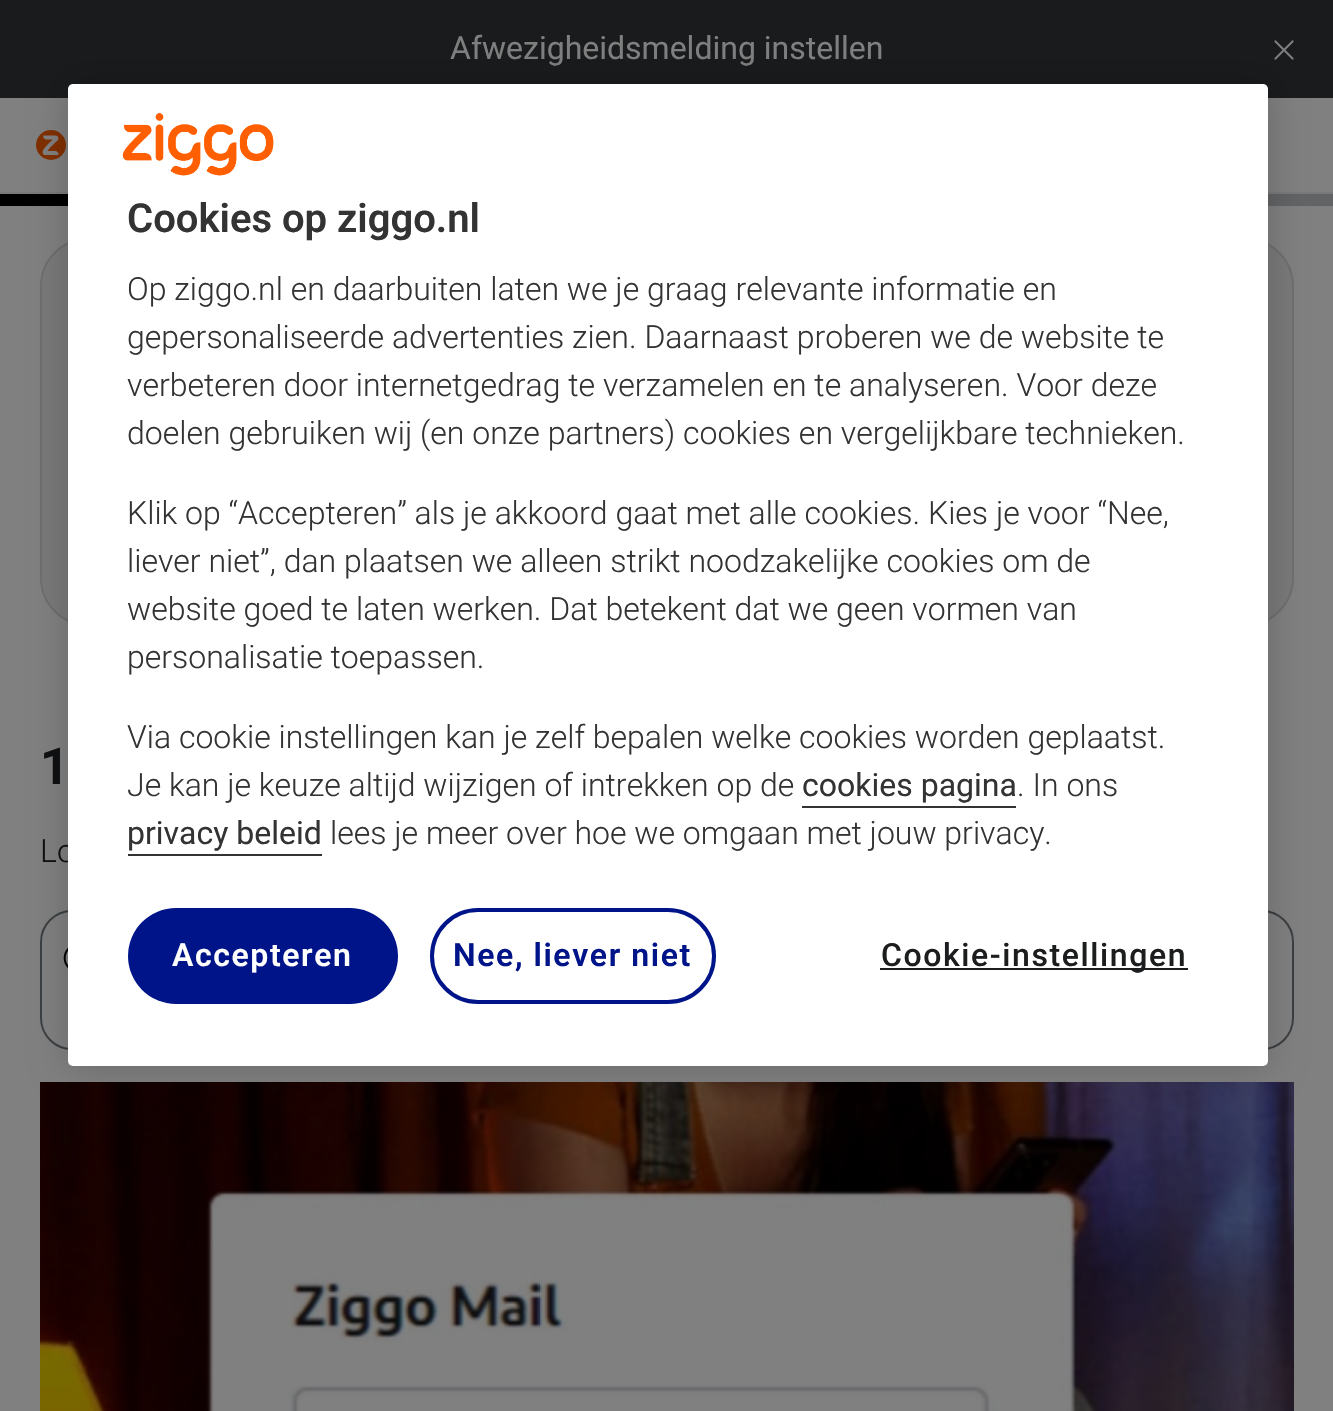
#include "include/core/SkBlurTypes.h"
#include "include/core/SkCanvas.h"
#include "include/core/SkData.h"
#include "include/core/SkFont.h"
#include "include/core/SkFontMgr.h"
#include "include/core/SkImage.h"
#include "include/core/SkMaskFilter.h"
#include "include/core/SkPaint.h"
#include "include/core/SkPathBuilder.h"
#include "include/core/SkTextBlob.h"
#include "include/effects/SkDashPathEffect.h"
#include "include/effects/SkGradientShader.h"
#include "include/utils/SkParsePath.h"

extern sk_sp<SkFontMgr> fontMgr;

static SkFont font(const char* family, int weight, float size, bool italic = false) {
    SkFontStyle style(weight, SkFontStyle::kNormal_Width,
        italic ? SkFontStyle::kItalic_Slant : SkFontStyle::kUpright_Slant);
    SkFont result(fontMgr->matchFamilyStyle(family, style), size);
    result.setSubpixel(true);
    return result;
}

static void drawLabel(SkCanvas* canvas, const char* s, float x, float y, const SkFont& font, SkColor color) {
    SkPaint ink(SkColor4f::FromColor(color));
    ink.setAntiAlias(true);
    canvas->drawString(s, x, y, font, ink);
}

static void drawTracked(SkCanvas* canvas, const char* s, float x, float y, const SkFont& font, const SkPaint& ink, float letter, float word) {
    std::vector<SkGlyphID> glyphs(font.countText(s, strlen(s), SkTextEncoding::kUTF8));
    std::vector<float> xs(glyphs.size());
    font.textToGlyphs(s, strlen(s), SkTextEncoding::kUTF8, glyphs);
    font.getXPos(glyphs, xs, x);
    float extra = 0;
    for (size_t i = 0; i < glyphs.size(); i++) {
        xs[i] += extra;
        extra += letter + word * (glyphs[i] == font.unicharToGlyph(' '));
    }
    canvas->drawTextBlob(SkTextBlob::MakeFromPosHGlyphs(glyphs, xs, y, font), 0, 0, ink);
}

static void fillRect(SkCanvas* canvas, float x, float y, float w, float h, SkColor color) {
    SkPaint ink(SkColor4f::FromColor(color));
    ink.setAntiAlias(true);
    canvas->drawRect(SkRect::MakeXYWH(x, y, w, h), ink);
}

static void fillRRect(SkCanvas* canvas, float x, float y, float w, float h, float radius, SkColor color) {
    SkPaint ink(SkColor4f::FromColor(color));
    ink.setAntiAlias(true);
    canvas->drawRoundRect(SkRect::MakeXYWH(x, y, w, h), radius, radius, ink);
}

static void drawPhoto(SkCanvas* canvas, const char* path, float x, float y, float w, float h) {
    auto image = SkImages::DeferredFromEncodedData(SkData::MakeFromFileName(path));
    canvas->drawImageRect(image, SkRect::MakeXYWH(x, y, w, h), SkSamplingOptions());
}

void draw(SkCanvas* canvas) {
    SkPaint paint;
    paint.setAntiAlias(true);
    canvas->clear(0xFF808080);
    fillRect(canvas, 0, 0, 1333, 98, 0xFF191B1D);
    SkFont font1 = font("Roboto", 400, 32);
    drawLabel(canvas, "Afwezigheidsmelding instellen", 450, 59, font1, 0xFF808080);
    drawPhoto(canvas, "assets/img1.png", 1274, 40, 20, 20);
    fillRect(canvas, 0, 192, 1333, 2, 0xFF79797A);
    drawPhoto(canvas, "assets/img2.png", 36, 130, 30, 30);
    fillRect(canvas, 1268, 194, 65, 12, 0xFF616364);
    fillRect(canvas, 0, 194, 68, 12, 0xFF000000);
    paint.setColor(0xFF79797A);
    canvas->drawRoundRect(SkRect::MakeXYWH(41, 239, 1252, 386), 47, 47, paint);
    paint.setStroke(true);
    paint.setStrokeWidth(2);
    paint.setColor(0xFF6D6E6F);
    canvas->drawRoundRect(SkRect::MakeXYWH(41, 239, 1252, 386), 47, 47, paint);
    SkFont font2 = font("Roboto", 700, 51);
    drawLabel(canvas, "1", 40, 784, font2, 0xFF0E1011);
    SkFont font3 = font("Roboto", 300, 32);
    drawLabel(canvas, "Lo", 40, 862, font3, 0xFF0E1011);
    paint.setColor(0xFF3B3F42);
    canvas->drawRoundRect(SkRect::MakeXYWH(41, 911, 1252, 138), 31, 31, paint);
    drawPhoto(canvas, "assets/img3.png", 63, 947, 5, 22);
    drawPhoto(canvas, "assets/img4.png", 40, 1082, 1254, 329);
    paint.setStroke(false);
    paint.setColor(0x33000000);
    paint.setMaskFilter(SkMaskFilter::MakeBlur(kNormal_SkBlurStyle, 18));
    canvas->drawRoundRect(SkRect::MakeXYWH(68, 84, 1200, 982), 5, 5, paint);
    paint.setMaskFilter(nullptr);
    fillRRect(canvas, 68, 84, 1200, 982, 5, 0xFFFFFFFF);
    drawPhoto(canvas, "assets/img5.png", 122, 112, 152, 64);
    SkFont font4 = font("Roboto", 600, 40);
    drawLabel(canvas, "Cookies op ziggo.nl", 127, 232, font4, 0xFF333333);
    drawLabel(canvas, "Op ziggo.nl en daarbuiten laten we je graag relevante informatie en", 127, 300, font3, 0xFF333333);
    drawLabel(canvas, "gepersonaliseerde advertenties zien. Daarnaast proberen we de website te", 127, 348, font3, 0xFF333333);
    drawLabel(canvas, "verbeteren door internetgedrag te verzamelen en te analyseren. Voor deze", 127, 396, font3, 0xFF333333);
    drawLabel(canvas, "doelen gebruiken wij (en onze partners) cookies en vergelijkbare technieken.", 127, 444, font3, 0xFF333333);
    drawLabel(canvas, "Klik op “Accepteren” als je akkoord gaat met alle cookies. Kies je voor “Nee,", 127, 524, font3, 0xFF333333);
    drawLabel(canvas, "liever niet”, dan plaatsen we alleen strikt noodzakelijke cookies om de", 127, 572, font3, 0xFF333333);
    drawLabel(canvas, "website goed te laten werken. Dat betekent dat we geen vormen van", 127, 620, font3, 0xFF333333);
    drawLabel(canvas, "personalisatie toepassen.", 127, 668, font3, 0xFF333333);
    drawLabel(canvas, "Via cookie instellingen kan je zelf bepalen welke cookies worden geplaatst.", 127, 748, font3, 0xFF333333);
    drawLabel(canvas, "Je kan je keuze altijd wijzigen of intrekken op de", 127, 796, font3, 0xFF333333);
    drawLabel(canvas, "cookies pagina", 802, 796, font1, 0xFF333333);
    fillRect(canvas, 802, 806, 214, 2, 0xFF333333);
    drawLabel(canvas, ". In ons", 1017, 796, font3, 0xFF333333);
    drawLabel(canvas, "privacy beleid", 127, 844, font1, 0xFF333333);
    fillRect(canvas, 128, 854, 194, 2, 0xFF333333);
    drawLabel(canvas, "lees je meer over hoe we omgaan met jouw privacy.", 330, 844, font3, 0xFF333333);
    fillRRect(canvas, 128, 908, 270, 96, 48, 0xFF001489);
    SkFont font5 = font("Roboto", 600, 32);
    paint.setColor(0xFFFFFFFF);
    drawTracked(canvas, "Accepteren", 172, 966, font5, paint, 1.6f, 0);
    paint.setStroke(true);
    paint.setStrokeWidth(4);
    paint.setColor(0xFF001489);
    canvas->drawRoundRect(SkRect::MakeXYWH(432, 910, 282, 92), 46, 46, paint);
    paint.setStroke(false);
    drawTracked(canvas, "Nee, liever niet", 453, 966, font5, paint, 1.6f, 0);
    fillRect(canvas, 880, 968, 308, 2, 0xFF1C1D1E);
    SkFont font6 = font("Roboto", 500, 32);
    paint.setColor(0xFF1C1D1E);
    drawTracked(canvas, "Cookie-instellingen", 881, 966, font6, paint, 1.6f, 0);
}
